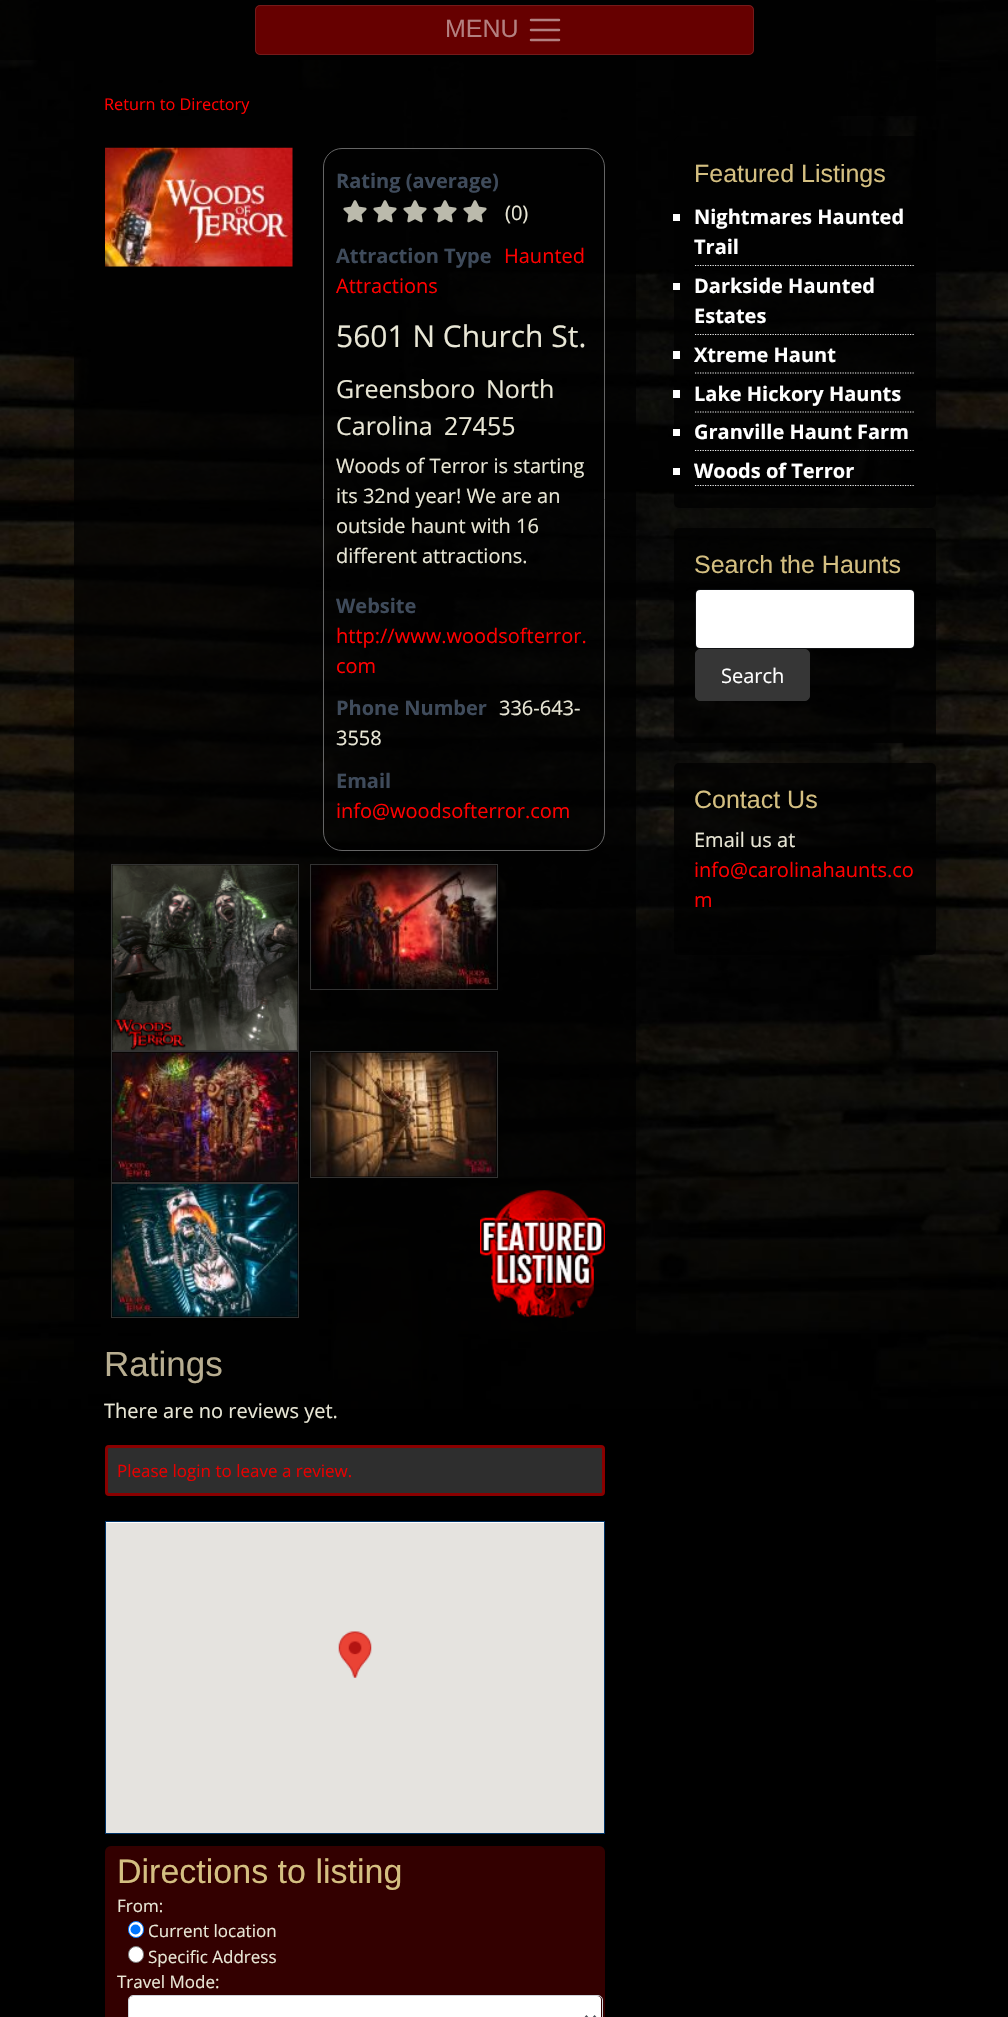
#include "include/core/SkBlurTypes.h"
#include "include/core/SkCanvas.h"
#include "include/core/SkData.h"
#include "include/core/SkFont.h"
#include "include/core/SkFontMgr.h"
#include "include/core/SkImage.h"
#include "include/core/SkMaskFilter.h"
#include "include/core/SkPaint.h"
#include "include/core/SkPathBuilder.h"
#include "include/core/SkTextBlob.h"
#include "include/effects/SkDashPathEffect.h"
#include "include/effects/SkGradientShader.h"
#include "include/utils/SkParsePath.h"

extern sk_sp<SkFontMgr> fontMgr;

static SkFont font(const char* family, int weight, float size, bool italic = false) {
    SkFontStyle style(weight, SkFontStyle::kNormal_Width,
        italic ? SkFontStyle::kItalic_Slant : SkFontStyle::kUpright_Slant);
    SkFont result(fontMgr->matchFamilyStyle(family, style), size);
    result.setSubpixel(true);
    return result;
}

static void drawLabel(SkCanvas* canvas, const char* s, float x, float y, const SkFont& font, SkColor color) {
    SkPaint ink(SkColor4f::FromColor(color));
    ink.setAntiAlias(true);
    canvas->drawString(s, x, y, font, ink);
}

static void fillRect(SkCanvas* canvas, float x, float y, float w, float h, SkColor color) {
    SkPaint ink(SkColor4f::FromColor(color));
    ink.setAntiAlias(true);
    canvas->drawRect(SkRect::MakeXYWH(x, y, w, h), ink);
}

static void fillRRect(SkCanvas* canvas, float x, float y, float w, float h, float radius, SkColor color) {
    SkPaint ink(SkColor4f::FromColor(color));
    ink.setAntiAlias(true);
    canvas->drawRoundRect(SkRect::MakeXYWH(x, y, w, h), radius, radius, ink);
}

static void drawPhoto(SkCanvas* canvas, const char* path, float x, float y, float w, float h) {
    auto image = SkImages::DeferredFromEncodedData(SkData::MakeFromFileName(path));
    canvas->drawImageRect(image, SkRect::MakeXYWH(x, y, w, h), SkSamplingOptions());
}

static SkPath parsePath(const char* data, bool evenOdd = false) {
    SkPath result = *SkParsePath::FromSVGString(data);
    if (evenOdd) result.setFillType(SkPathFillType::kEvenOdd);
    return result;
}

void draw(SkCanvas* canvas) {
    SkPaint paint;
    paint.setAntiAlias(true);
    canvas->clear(0xFF000000);
    drawPhoto(canvas, "assets/img1.png", 0, 0, 1008, 1409);
    fillRect(canvas, 74, 0, 562, 1409, 0xBF000000);
    fillRRect(canvas, 674, -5, 262, 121, 5, 0xBF000000);
    fillRect(canvas, 0, 0, 1008, 60, 0xBF000000);
    fillRRect(canvas, 255, 5, 499, 50, 5, 0xFF660000);
    paint.setStroke(true);
    paint.setStrokeWidth(1);
    paint.setColor(0x1AFFFFFF);
    canvas->drawRoundRect(SkRect::MakeXYWH(255.5f, 5.5f, 498, 49), 4.5f, 4.5f, paint);
    SkFont font1 = font("Liberation Sans", 400, 25);
    drawLabel(canvas, "MENU", 445, 37, font1, 0xFFB38080);
    paint.setStrokeWidth(2.5f);
    paint.setStrokeCap(SkPaint::kRound_Cap);
    paint.setColor(0xFFB38080);
    canvas->drawPath(parsePath("M531 20H559M531 30H559M531 40H559"), paint);
    SkFont font2 = font("Open Sans", 400, 16.25f);
    drawLabel(canvas, "Return to Directory", 104, 110, font2, 0xFFFF0000);
    drawPhoto(canvas, "assets/img2.png", 105, 147, 188, 120);
    paint.setStrokeWidth(1);
    paint.setStrokeCap(SkPaint::kButt_Cap);
    paint.setColor(0xFF656565);
    canvas->drawRoundRect(SkRect::MakeXYWH(323.5f, 148.5f, 281, 702), 18.5f, 18.5f, paint);
    SkFont font3 = font("Open Sans", 700, 20);
    drawLabel(canvas, "Rating (average)", 336, 188, font3, 0xFF3F4B5B);
    drawPhoto(canvas, "assets/img3.png", 343, 200, 24, 23);
    drawPhoto(canvas, "assets/img4.png", 373, 200, 24, 23);
    drawPhoto(canvas, "assets/img5.png", 403, 200, 24, 23);
    drawPhoto(canvas, "assets/img6.png", 433, 200, 24, 23);
    drawPhoto(canvas, "assets/img7.png", 463, 200, 24, 23);
    SkFont font4 = font("Open Sans", 400, 20);
    drawLabel(canvas, "(0)", 505, 220, font4, 0xFFE9E7D6);
    drawLabel(canvas, "Attraction Type", 336, 263, font3, 0xFF3F4B5B);
    drawLabel(canvas, "Haunted", 504, 263, font4, 0xFFFF0000);
    drawLabel(canvas, "Attractions", 336, 293, font4, 0xFFFF0000);
    SkFont font5 = font("Open Sans", 400, 30);
    drawLabel(canvas, "5601 N Church St.", 336, 347, font5, 0xFFE9E7D6);
    SkFont font6 = font("Open Sans", 400, 25);
    drawLabel(canvas, "Greensboro", 336, 398, font6, 0xFFE9E7D6);
    drawLabel(canvas, "North", 486, 398, font6, 0xFFE9E7D6);
    drawLabel(canvas, "Carolina", 336, 435, font6, 0xFFE9E7D6);
    drawLabel(canvas, "27455", 444, 435, font6, 0xFFE9E7D6);
    drawLabel(canvas, "Woods of Terror is starting", 336, 473, font4, 0xFFE9E7D6);
    drawLabel(canvas, "its 32nd year! We are an", 336, 503, font4, 0xFFE9E7D6);
    drawLabel(canvas, "outside haunt with 16", 336, 533, font4, 0xFFE9E7D6);
    drawLabel(canvas, "different attractions.", 336, 563, font4, 0xFFE9E7D6);
    drawLabel(canvas, "Website", 336, 613, font3, 0xFF3F4B5B);
    drawLabel(canvas, "http://www.woodsofterror.", 336, 643, font4, 0xFFFF0000);
    drawLabel(canvas, "com", 336, 673, font4, 0xFFFF0000);
    drawLabel(canvas, "Phone Number", 336, 715, font3, 0xFF3F4B5B);
    drawLabel(canvas, "336-643-", 499, 715, font4, 0xFFE9E7D6);
    drawLabel(canvas, "3558", 336, 745, font4, 0xFFE9E7D6);
    drawLabel(canvas, "Email", 336, 788, font3, 0xFF3F4B5B);
    drawLabel(canvas, "info@woodsofterror.com", 336, 818, font4, 0xFFFF0000);
    paint.setColor(0xFF333333);
    canvas->drawRect(SkRect::MakeXYWH(111.5f, 864.5f, 187, 186), paint);
    canvas->drawRect(SkRect::MakeXYWH(310.5f, 864.5f, 187, 125), paint);
    drawPhoto(canvas, "assets/img8.png", 112, 865, 186, 186);
    drawPhoto(canvas, "assets/img9.png", 311, 865, 186, 124);
    canvas->drawRect(SkRect::MakeXYWH(111.5f, 1051.5f, 187, 131), paint);
    canvas->drawRect(SkRect::MakeXYWH(310.5f, 1051.5f, 187, 126), paint);
    drawPhoto(canvas, "assets/img10.png", 112, 1052, 186, 130);
    drawPhoto(canvas, "assets/img11.png", 311, 1052, 186, 125);
    canvas->drawRect(SkRect::MakeXYWH(111.5f, 1183.5f, 187, 134), paint);
    drawPhoto(canvas, "assets/img12.png", 112, 1184, 186, 133);
    drawPhoto(canvas, "assets/img13.png", 480, 1190, 125, 128);
    SkFont font7 = font("Liberation Sans", 400, 35);
    drawLabel(canvas, "Ratings", 104, 1376, font7, 0xFFB8AE91);
    drawLabel(canvas, "There are no reviews yet.", 104, 1418, font4, 0xFFE9E7D6);
    paint.setStroke(false);
    paint.setColor(0xFF2E2E2E);
    canvas->drawRoundRect(SkRect::MakeXYWH(106.5f, 1446.5f, 497, 48), 2.5f, 2.5f, paint);
    paint.setStroke(true);
    paint.setStrokeWidth(3);
    paint.setColor(0xFF8A0000);
    canvas->drawRoundRect(SkRect::MakeXYWH(106.5f, 1446.5f, 497, 48), 2.5f, 2.5f, paint);
    SkFont font8 = font("Open Sans", 400, 17);
    drawLabel(canvas, "Please login to leave a review.", 117, 1477, font8, 0xFFE60000);
    fillRect(canvas, 106, 1522, 498, 1, 0xFFFFFFFF);
    paint.setStrokeWidth(1);
    paint.setColor(0xFF003366);
    canvas->drawRect(SkRect::MakeXYWH(105.5f, 1521.5f, 499, 312), paint);
    fillRect(canvas, 106, 1523, 498, 310, 0xFFE5E3DF);
    drawPhoto(canvas, "assets/img14.png", 338, 1631, 34, 47);
    fillRRect(canvas, 105, 1846, 500, 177, 6, 0xFF330000);
    SkFont font9 = font("Liberation Sans", 400, 34);
    drawLabel(canvas, "Directions to listing", 117, 1883, font9, 0xFFD4BF81);
    drawLabel(canvas, "From:", 117, 1912, font8, 0xFFE9E7D6);
    paint.setStroke(false);
    paint.setColor(0xFFFFFFFF);
    canvas->drawRoundRect(SkRect::MakeXYWH(128.5f, 1921.5f, 15, 16), 7.5f, 7.5f, paint);
    paint.setStroke(true);
    paint.setColor(0xFF0075FF);
    canvas->drawRoundRect(SkRect::MakeXYWH(128.5f, 1921.5f, 15, 16), 7.5f, 7.5f, paint);
    paint.setStroke(false);
    canvas->drawCircle(135.5f, 1929.5f, 5, paint);
    drawLabel(canvas, "Current location", 148, 1937, font8, 0xFFE9E7D6);
    paint.setColor(0xFFFFFFFF);
    canvas->drawRoundRect(SkRect::MakeXYWH(128.5f, 1946.5f, 15, 16), 7.5f, 7.5f, paint);
    paint.setStroke(true);
    paint.setColor(0xFF767676);
    canvas->drawRoundRect(SkRect::MakeXYWH(128.5f, 1946.5f, 15, 16), 7.5f, 7.5f, paint);
    drawLabel(canvas, "Specific Address", 148, 1963, font8, 0xFFE9E7D6);
    drawLabel(canvas, "Travel Mode:", 117, 1988, font8, 0xFFE9E7D6);
    fillRRect(canvas, 129, 1996, 472, 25, 4, 0xFFFFFFFF);
    paint.setColor(0xFFCED4DA);
    canvas->drawRoundRect(SkRect::MakeXYWH(128.5f, 1995.5f, 474, 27), 4.5f, 4.5f, paint);
    paint.setStrokeWidth(2.5f);
    paint.setColor(0xFF495057);
    canvas->drawPath(parsePath("M585.5 2016L590.5 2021L595.5 2016"), paint);
    fillRRect(canvas, 674, 136, 262, 372, 5, 0xBF000000);
    drawLabel(canvas, "Featured Listings", 694, 182, font1, 0xFFD4BF81);
    paint.setStrokeWidth(1.2f);
    paint.setColor(0xFFEEEEEE);
    paint.setPathEffect(SkDashPathEffect::Make({{1.25f, 1.25f}}, 0));
    canvas->drawPath(parsePath("M695 265.5H915"), paint);
    paint.setPathEffect(nullptr);
    fillRect(canvas, 673, 214, 7, 7, 0xFFFFFFFF);
    drawLabel(canvas, "Nightmares Haunted", 694, 224, font3, 0xFFFFFFFF);
    drawLabel(canvas, "Trail", 694, 254, font3, 0xFFFFFFFF);
    paint.setPathEffect(SkDashPathEffect::Make({{1.25f, 1.25f}}, 0));
    canvas->drawPath(parsePath("M695 334.5H915"), paint);
    paint.setPathEffect(nullptr);
    fillRect(canvas, 673, 283, 7, 7, 0xFFFFFFFF);
    drawLabel(canvas, "Darkside Haunted", 694, 293, font3, 0xFFFFFFFF);
    drawLabel(canvas, "Estates", 694, 323, font3, 0xFFFFFFFF);
    paint.setPathEffect(SkDashPathEffect::Make({{1.25f, 1.25f}}, 0));
    canvas->drawPath(parsePath("M695 373H915"), paint);
    paint.setPathEffect(nullptr);
    fillRect(canvas, 673, 351, 7, 8, 0xFFFFFFFF);
    drawLabel(canvas, "Xtreme Haunt", 694, 362, font3, 0xFFFFFFFF);
    paint.setPathEffect(SkDashPathEffect::Make({{1.25f, 1.25f}}, 0));
    canvas->drawPath(parsePath("M695 412H915"), paint);
    paint.setPathEffect(nullptr);
    fillRect(canvas, 673, 390, 7, 8, 0xFFFFFFFF);
    drawLabel(canvas, "Lake Hickory Haunts", 694, 401, font3, 0xFFFFFFFF);
    paint.setPathEffect(SkDashPathEffect::Make({{1.25f, 1.25f}}, 0));
    canvas->drawPath(parsePath("M695 450.5H915"), paint);
    paint.setPathEffect(nullptr);
    fillRect(canvas, 673, 429, 7, 7, 0xFFFFFFFF);
    drawLabel(canvas, "Granville Haunt Farm", 694, 439, font3, 0xFFFFFFFF);
    paint.setPathEffect(SkDashPathEffect::Make({{1.25f, 1.25f}}, 0));
    canvas->drawPath(parsePath("M695 485.5H915"), paint);
    paint.setPathEffect(nullptr);
    fillRect(canvas, 673, 468, 7, 7, 0xFFFFFFFF);
    drawLabel(canvas, "Woods of Terror", 694, 478, font3, 0xFFFFFFFF);
    fillRRect(canvas, 674, 528, 262, 215, 5, 0xBF000000);
    drawLabel(canvas, "Search the Haunts", 694, 573, font1, 0xFFD4BF81);
    fillRRect(canvas, 696, 590, 218, 58, 4, 0xFFFFFFFF);
    paint.setStrokeWidth(1);
    paint.setColor(0x333F4B5B);
    canvas->drawRoundRect(SkRect::MakeXYWH(695.5f, 589.5f, 219, 59), 4.5f, 4.5f, paint);
    paint.setStroke(false);
    paint.setColor(0xFF363636);
    canvas->drawRoundRect(SkRect::MakeXYWH(695.5f, 649.5f, 114, 51), 4.5f, 4.5f, paint);
    paint.setStroke(true);
    canvas->drawRoundRect(SkRect::MakeXYWH(695.5f, 649.5f, 114, 51), 4.5f, 4.5f, paint);
    drawLabel(canvas, "Search", 721, 683, font4, 0xFFFFFFFF);
    fillRRect(canvas, 674, 763, 262, 192, 5, 0xBF000000);
    drawLabel(canvas, "Contact Us", 694, 808, font1, 0xFFD4BF81);
    drawLabel(canvas, "Email us at", 694, 847, font4, 0xFFE9E7D6);
    drawLabel(canvas, "info@carolinahaunts.co", 694, 877, font4, 0xFFFF0000);
    drawLabel(canvas, "m", 694, 907, font4, 0xFFFF0000);
}
